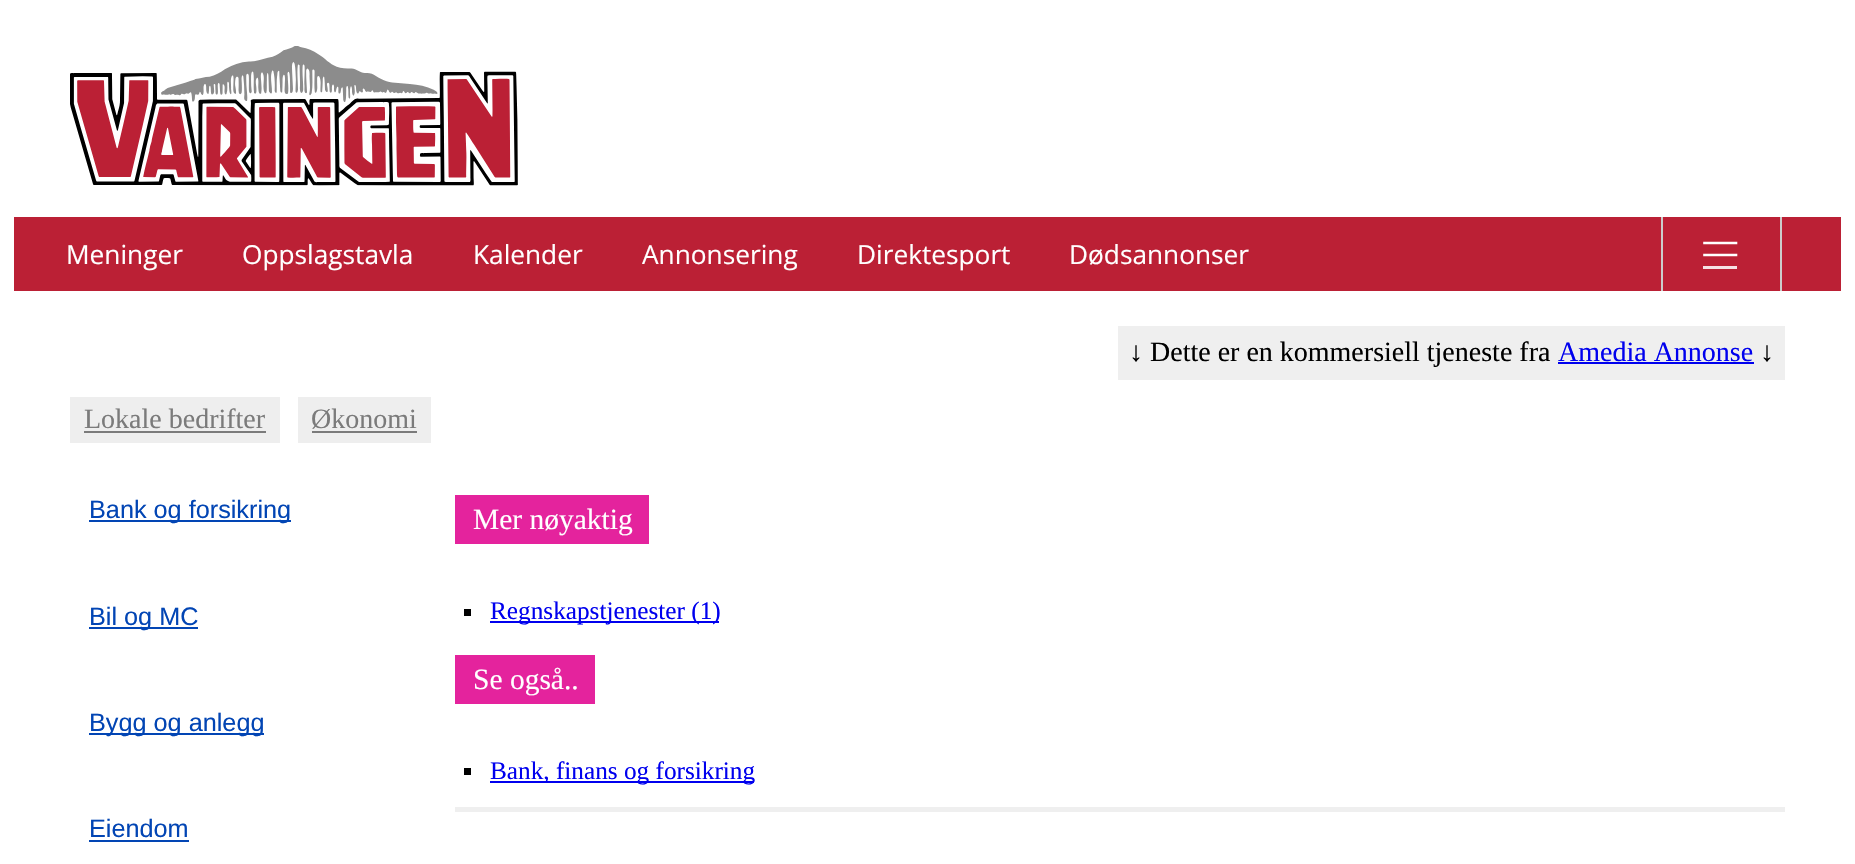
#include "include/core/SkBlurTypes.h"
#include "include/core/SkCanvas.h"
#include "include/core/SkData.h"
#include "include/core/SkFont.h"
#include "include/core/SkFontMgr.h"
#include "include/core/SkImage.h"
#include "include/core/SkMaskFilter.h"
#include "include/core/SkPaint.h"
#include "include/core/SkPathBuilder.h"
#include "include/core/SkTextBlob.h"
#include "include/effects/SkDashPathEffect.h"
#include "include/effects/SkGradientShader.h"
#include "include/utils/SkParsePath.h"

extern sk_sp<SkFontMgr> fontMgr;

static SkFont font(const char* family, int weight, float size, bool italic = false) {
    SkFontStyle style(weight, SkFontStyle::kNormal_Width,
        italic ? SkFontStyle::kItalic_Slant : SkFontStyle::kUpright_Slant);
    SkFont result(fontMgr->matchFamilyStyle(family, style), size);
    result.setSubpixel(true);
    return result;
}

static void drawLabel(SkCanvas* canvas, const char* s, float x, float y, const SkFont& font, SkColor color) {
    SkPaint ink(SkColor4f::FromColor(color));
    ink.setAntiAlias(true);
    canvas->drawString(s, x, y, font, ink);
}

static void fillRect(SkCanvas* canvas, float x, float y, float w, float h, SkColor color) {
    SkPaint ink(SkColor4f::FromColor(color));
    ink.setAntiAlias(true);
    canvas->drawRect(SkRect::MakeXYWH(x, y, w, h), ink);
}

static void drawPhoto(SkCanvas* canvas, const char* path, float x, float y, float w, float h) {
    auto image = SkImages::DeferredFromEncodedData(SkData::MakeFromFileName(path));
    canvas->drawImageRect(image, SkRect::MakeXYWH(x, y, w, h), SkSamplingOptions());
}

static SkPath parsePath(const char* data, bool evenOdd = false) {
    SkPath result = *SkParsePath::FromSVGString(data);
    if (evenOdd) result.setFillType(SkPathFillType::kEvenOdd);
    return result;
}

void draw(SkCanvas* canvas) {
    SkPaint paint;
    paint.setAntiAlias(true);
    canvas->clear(0xFFFFFFFF);
    drawPhoto(canvas, "assets/img1.png", 70, 46, 448, 140);
    fillRect(canvas, 14, 217, 1827, 74, 0xFFBB2035);
    SkFont font1 = font("Open Sans", 400, 26.25f);
    drawLabel(canvas, "Meninger", 66, 264, font1, 0xFFFFFFFF);
    drawLabel(canvas, "Oppslagstavla", 242, 264, font1, 0xFFFFFFFF);
    drawLabel(canvas, "Kalender", 473, 264, font1, 0xFFFFFFFF);
    drawLabel(canvas, "Annonsering", 642, 264, font1, 0xFFFFFFFF);
    drawLabel(canvas, "Direktesport", 857, 264, font1, 0xFFFFFFFF);
    drawLabel(canvas, "Dødsannonser", 1069, 264, font1, 0xFFFFFFFF);
    fillRect(canvas, 1780, 217, 2, 74, 0xFFCCCCCC);
    fillRect(canvas, 1661, 217, 2, 74, 0xFFCCCCCC);
    paint.setStroke(true);
    paint.setStrokeWidth(2.6f);
    paint.setStrokeCap(SkPaint::kSquare_Cap);
    paint.setColor(0xFFFFFFFF);
    canvas->drawPath(parsePath("M1704.5 243H1736M1704.5 255H1736"), paint);
    fillRect(canvas, 1703, 266, 34, 3, 0xFFF6E1E4);
    fillRect(canvas, 1118, 326, 667, 54, 0xFFEFEFEF);
    SkFont font2 = font("Liberation Serif", 400, 28);
    drawLabel(canvas, "↓ Dette er en kommersiell tjeneste fra", 1129, 361, font2, 0xFF000000);
    drawLabel(canvas, "Amedia Annonse", 1558, 361, font2, 0xFF0000EE);
    fillRect(canvas, 1558, 362, 196, 2, 0xFF0000EE);
    drawLabel(canvas, "↓", 1760, 361, font2, 0xFF000000);
    fillRect(canvas, 70, 397, 210, 46, 0xFFEEEEEE);
    drawLabel(canvas, "Lokale bedrifter", 84, 428, font2, 0xFF7B7B7B);
    fillRect(canvas, 84, 431, 182, 2, 0xFF7B7B7B);
    fillRect(canvas, 298, 397, 133, 46, 0xFFEEEEEE);
    drawLabel(canvas, "Økonomi", 311, 428, font2, 0xFF7B7B7B);
    fillRect(canvas, 312, 431, 105, 2, 0xFF7B7B7B);
    fillRect(canvas, 89, 520, 202, 2, 0xFF0245B4);
    SkFont font3 = font("Liberation Sans", 400, 25.25f);
    drawLabel(canvas, "Bank og forsikring", 89, 518, font3, 0xFF0245B4);
    fillRect(canvas, 89, 627, 109, 2, 0xFF0245B4);
    drawLabel(canvas, "Bil og MC", 89, 625, font3, 0xFF0245B4);
    fillRect(canvas, 89, 733, 175, 2, 0xFF0245B4);
    drawLabel(canvas, "Bygg og anlegg", 89, 731, font3, 0xFF0245B4);
    drawLabel(canvas, "Eiendom", 89, 837, font3, 0xFF0245B4);
    fillRect(canvas, 89, 840, 100, 2, 0xFF0245B4);
    fillRect(canvas, 455, 807, 1330, 5, 0xFFEFEFEF);
    fillRect(canvas, 455, 495, 194, 49, 0xFFE4239D);
    SkFont font4 = font("Liberation Serif", 400, 29.5f);
    drawLabel(canvas, "Mer nøyaktig", 473, 529, font4, 0xFFFFFFFF);
    fillRect(canvas, 464, 609, 7, 7, 0xFF000000);
    fillRect(canvas, 490, 621, 229, 2, 0xFF0000EE);
    SkFont font5 = font("Liberation Serif", 400, 25.25f);
    drawLabel(canvas, "Regnskapstjenester (1)", 490, 619, font5, 0xFF0000EE);
    fillRect(canvas, 455, 655, 140, 49, 0xFFE4239D);
    drawLabel(canvas, "Se også..", 473, 689, font4, 0xFFFFFFFF);
    fillRect(canvas, 464, 768, 7, 7, 0xFF000000);
    fillRect(canvas, 490, 781, 264, 2, 0xFF0000EE);
    drawLabel(canvas, "Bank, finans og forsikring", 490, 779, font5, 0xFF0000EE);
}
